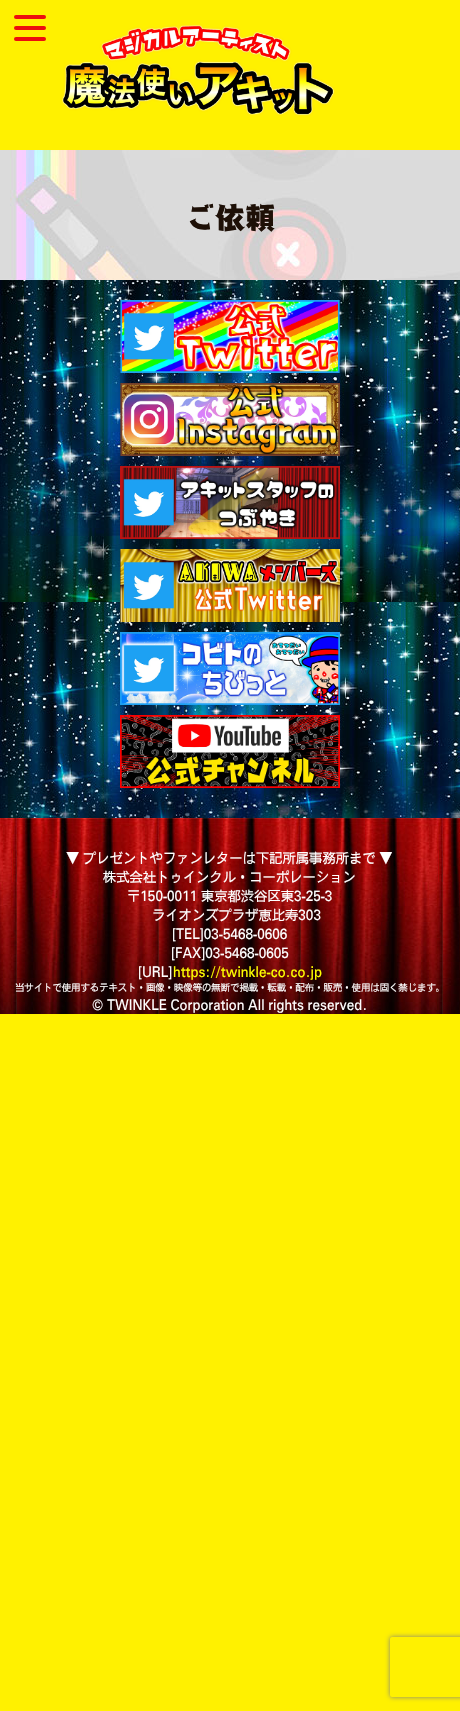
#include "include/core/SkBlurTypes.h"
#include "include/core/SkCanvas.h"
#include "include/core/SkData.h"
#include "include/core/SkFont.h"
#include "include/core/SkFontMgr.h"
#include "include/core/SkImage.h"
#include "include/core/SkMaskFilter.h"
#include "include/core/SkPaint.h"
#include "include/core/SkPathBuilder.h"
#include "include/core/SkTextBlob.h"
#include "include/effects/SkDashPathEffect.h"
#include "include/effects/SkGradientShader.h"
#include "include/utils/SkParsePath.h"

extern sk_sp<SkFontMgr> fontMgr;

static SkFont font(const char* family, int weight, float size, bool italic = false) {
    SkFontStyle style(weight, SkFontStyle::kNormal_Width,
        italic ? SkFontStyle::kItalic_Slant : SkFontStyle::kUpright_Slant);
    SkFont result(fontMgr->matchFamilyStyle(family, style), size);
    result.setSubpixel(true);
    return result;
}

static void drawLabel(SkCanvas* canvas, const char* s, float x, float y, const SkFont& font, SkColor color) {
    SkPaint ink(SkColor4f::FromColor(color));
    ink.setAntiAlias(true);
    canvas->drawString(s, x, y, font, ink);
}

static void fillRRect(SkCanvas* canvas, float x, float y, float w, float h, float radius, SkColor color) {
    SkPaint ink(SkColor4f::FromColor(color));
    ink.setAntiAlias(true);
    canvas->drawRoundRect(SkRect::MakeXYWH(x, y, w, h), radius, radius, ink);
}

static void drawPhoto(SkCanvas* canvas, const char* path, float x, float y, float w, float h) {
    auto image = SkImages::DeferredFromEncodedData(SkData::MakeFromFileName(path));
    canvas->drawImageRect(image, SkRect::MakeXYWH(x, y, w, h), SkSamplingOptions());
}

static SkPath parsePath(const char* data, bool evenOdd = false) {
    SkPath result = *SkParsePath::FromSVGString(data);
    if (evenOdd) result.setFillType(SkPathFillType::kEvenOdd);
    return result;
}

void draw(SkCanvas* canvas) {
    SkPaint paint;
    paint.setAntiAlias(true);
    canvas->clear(0xFFFFF100);
    fillRRect(canvas, 14, 15, 32, 4, 2, 0xFFED0E0E);
    fillRRect(canvas, 14, 26, 32, 4, 2, 0xFFED0E0E);
    fillRRect(canvas, 14, 37, 32, 4, 2, 0xFFED0E0E);
    drawPhoto(canvas, "assets/img1.png", 61, 24, 274, 92);
    drawPhoto(canvas, "assets/img2.png", 0, 150, 460, 130);
    SkFont font1 = font("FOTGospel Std", 800, 30);
    drawLabel(canvas, "ご依頼", 185, 229, font1, 0xFF1E1007);
    drawPhoto(canvas, "assets/img3.png", 0, 280, 460, 538);
    drawPhoto(canvas, "assets/img4.png", 120, 300, 220, 73);
    drawPhoto(canvas, "assets/img5.png", 120, 383, 220, 73);
    drawPhoto(canvas, "assets/img6.png", 120, 466, 220, 73);
    drawPhoto(canvas, "assets/img7.png", 120, 549, 220, 73);
    drawPhoto(canvas, "assets/img8.png", 120, 632, 220, 73);
    drawPhoto(canvas, "assets/img9.png", 120, 715, 220, 73);
    drawPhoto(canvas, "assets/img10.png", 0, 818, 460, 196);
    SkFont font2 = font("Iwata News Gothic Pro", 400, 13.3f);
    drawLabel(canvas, "▼ プレゼントやファンレターは下記所属事務所まで ▼", 66, 863, font2, 0xFFFFFFFF);
    drawLabel(canvas, "株式会社トゥインクル・コーポレーション", 103, 882, font2, 0xFFFFFFFF);
    drawLabel(canvas, "〒150-0011 東京都渋谷区東3-25-3", 127, 901, font2, 0xFFFFFFFF);
    drawLabel(canvas, "ライオンズプラザ恵比寿303", 152, 920, font2, 0xFFFFFFFF);
    drawLabel(canvas, "[TEL]03-5468-0606", 172, 939, font2, 0xFFFFFFFF);
    drawLabel(canvas, "[FAX]03-5468-0605", 171, 958, font2, 0xFFFFFFFF);
    drawLabel(canvas, "[URL]", 138, 977, font2, 0xFFFFFFFF);
    drawLabel(canvas, "https://twinkle-co.co.jp", 173, 977, font2, 0xFFFFFF00);
    SkFont font3 = font("Iwata News Gothic Pro", 400, 9.35f);
    drawLabel(canvas, "当サイトで使用するテキスト・画像・映像等の無断で掲載・転載・配布・販売・使用は固く禁じます。", 15, 991, font3, 0xFFFFFFFF);
    drawLabel(canvas, "© TWINKLE Corporation All rights reserved.", 92, 1010, font2, 0xFFFFFFFF);
    canvas->save();
    canvas->clipPath(parsePath("M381 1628H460V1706H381ZM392 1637H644C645 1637 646 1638 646 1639V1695C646 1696 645 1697 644 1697H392C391 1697 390 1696 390 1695V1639C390 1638 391 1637 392 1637Z", true), true);
    paint.setColor(0xFF808080);
    paint.setMaskFilter(SkMaskFilter::MakeBlur(kNormal_SkBlurStyle, 2.5f));
    canvas->drawRoundRect(SkRect::MakeXYWH(390, 1637, 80, 60), 2, 2, paint);
    paint.setMaskFilter(nullptr);
    canvas->restore();
}
